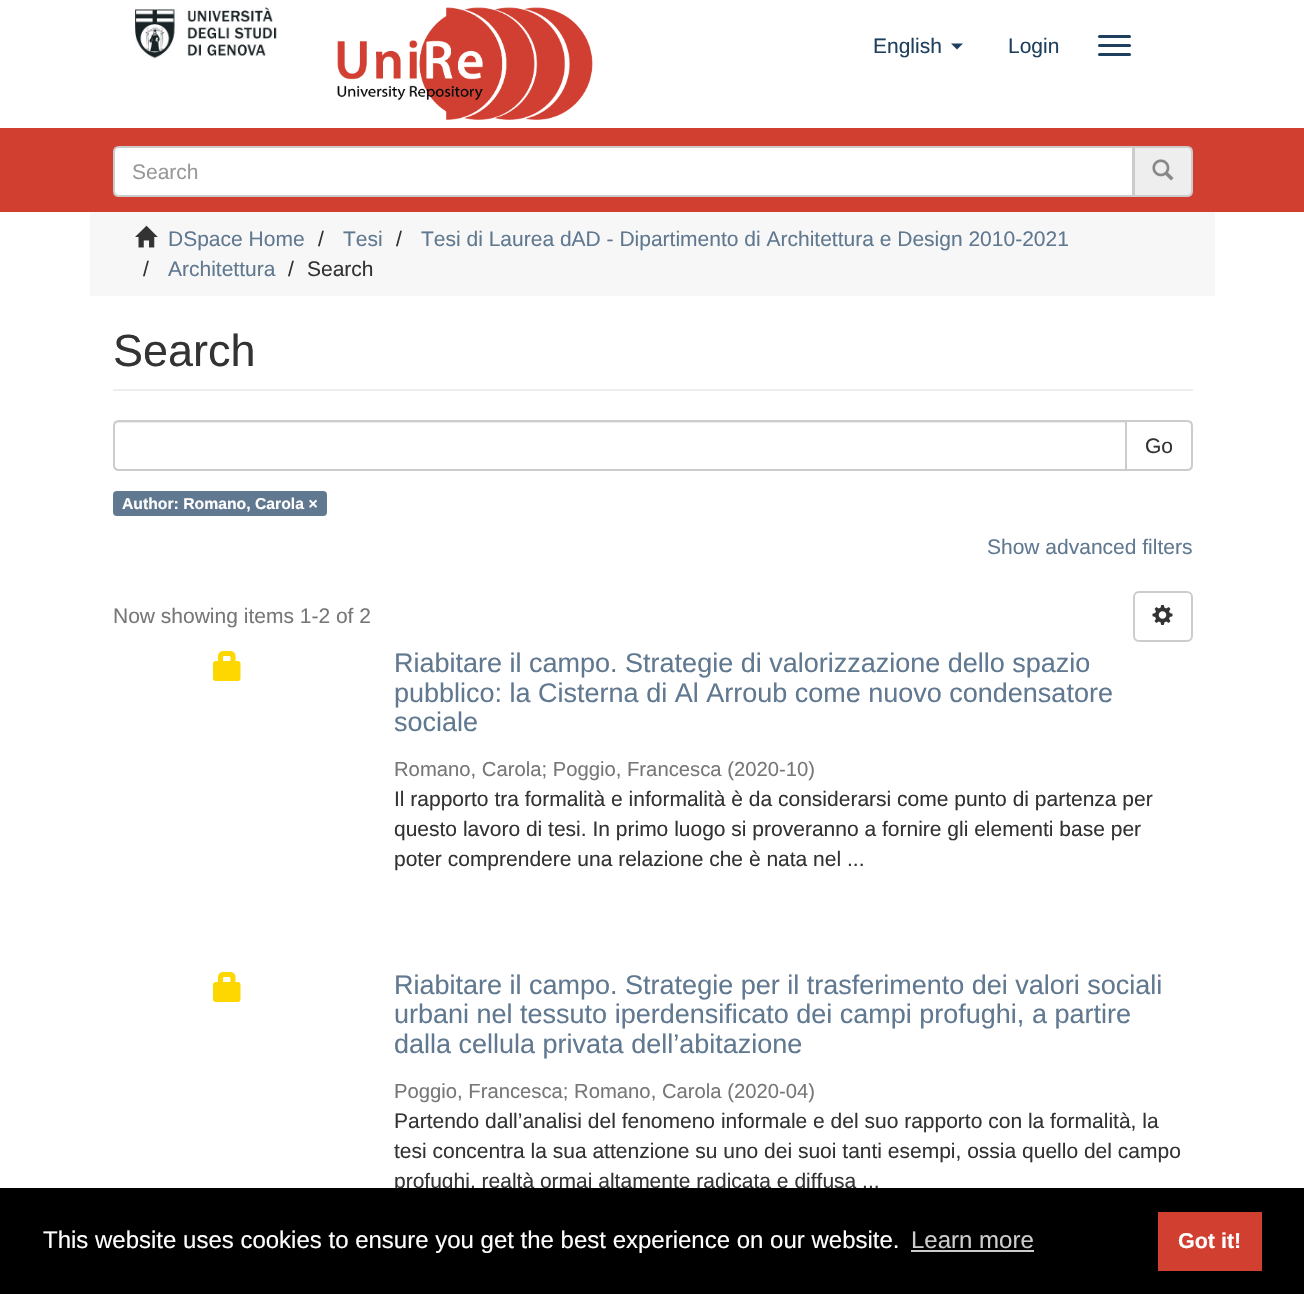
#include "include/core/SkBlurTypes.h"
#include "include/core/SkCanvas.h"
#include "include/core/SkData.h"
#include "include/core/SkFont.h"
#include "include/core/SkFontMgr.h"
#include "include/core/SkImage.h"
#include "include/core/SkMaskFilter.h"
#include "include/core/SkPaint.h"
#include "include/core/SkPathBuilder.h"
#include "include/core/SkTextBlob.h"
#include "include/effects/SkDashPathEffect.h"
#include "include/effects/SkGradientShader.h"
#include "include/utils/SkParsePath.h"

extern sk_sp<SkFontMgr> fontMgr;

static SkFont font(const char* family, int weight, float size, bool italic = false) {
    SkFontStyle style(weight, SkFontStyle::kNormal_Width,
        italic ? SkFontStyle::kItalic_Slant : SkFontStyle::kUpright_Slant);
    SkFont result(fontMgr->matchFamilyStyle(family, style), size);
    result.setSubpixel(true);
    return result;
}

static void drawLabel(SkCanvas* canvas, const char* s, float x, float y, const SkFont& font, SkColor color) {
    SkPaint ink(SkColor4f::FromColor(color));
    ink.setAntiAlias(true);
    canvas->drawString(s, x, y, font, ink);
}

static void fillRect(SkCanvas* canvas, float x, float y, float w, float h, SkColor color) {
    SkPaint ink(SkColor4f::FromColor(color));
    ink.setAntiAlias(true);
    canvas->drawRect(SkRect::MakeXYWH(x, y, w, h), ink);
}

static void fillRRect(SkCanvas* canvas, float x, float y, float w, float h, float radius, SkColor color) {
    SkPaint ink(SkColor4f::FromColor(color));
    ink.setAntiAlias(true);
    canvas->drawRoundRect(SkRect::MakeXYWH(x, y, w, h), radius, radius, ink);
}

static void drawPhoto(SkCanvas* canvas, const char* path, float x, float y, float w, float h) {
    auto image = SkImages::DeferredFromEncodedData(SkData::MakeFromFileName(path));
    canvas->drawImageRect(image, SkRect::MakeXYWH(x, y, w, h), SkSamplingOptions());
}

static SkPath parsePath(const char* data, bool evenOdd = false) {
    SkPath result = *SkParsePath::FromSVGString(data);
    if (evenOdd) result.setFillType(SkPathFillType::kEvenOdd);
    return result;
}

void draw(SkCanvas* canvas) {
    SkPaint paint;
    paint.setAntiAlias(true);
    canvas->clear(0xFFFFFFFF);
    drawPhoto(canvas, "assets/img1.png", 135, 7, 142, 52);
    drawPhoto(canvas, "assets/img2.png", 337, 7, 256, 113);
    SkFont font1 = font("Liberation Sans", 400, 21);
    drawLabel(canvas, "English", 873, 53, font1, 0xFF1F3F5E);
    paint.setColor(0xFF1F3F5E);
    canvas->drawPath(parsePath("M951 43.5H963L957 49.5Z"), paint);
    drawLabel(canvas, "Login", 1008, 53, font1, 0xFF1F3F5E);
    fillRRect(canvas, 1098, 35, 33, 3, 1.5f, 0xFF1F3F5E);
    fillRRect(canvas, 1098, 44, 33, 3, 1.5f, 0xFF1F3F5E);
    fillRRect(canvas, 1098, 53, 33, 3, 1.5f, 0xFF1F3F5E);
    fillRect(canvas, 0, 128, 1304, 84, 0xFFD03F30);
    paint.setColor(0xFFEEEEEE);
    canvas->drawPath(parsePath("M1134 147H1187C1190 147 1192 149 1192 152V191C1192 194 1190 196 1187 196H1134Z"), paint);
    paint.setStroke(true);
    paint.setStrokeWidth(2);
    paint.setColor(0xFFCCCCCC);
    canvas->drawPath(parsePath("M1134 147H1187C1190 147 1192 149 1192 152V191C1192 194 1190 196 1187 196H1134Z"), paint);
    paint.setStroke(false);
    paint.setColor(0xFFFFFFFF);
    canvas->drawPath(parsePath("M119 147H1133V196H119C116 196 114 194 114 191V152C114 149 116 147 119 147Z"), paint);
    paint.setStroke(true);
    paint.setColor(0xFFCCCCCC);
    canvas->drawPath(parsePath("M119 147H1133V196H119C116 196 114 194 114 191V152C114 149 116 147 119 147Z"), paint);
    drawLabel(canvas, "Search", 132, 179, font1, 0xFF999999);
    drawPhoto(canvas, "assets/img3.png", 1152, 159, 22, 22);
    fillRect(canvas, 90, 212, 1125, 84, 0xFFF7F7F7);
    drawPhoto(canvas, "assets/img4.png", 135, 225, 23, 23);
    drawLabel(canvas, "DSpace Home", 168, 246, font1, 0xFF607890);
    drawLabel(canvas, "/", 318, 246, font1, 0xFF333333);
    drawLabel(canvas, "Tesi", 343, 246, font1, 0xFF607890);
    drawLabel(canvas, "/", 396, 246, font1, 0xFF333333);
    drawLabel(canvas, "Tesi di Laurea dAD - Dipartimento di Architettura e Design 2010-2021", 421, 246, font1, 0xFF607890);
    drawLabel(canvas, "/", 143, 276, font1, 0xFF333333);
    drawLabel(canvas, "Architettura", 168, 276, font1, 0xFF607890);
    drawLabel(canvas, "/", 288, 276, font1, 0xFF333333);
    drawLabel(canvas, "Search", 307, 276, font1, 0xFF333333);
    fillRect(canvas, 113, 389, 1080, 2, 0xFFEEEEEE);
    SkFont font2 = font("Liberation Sans", 400, 45);
    drawLabel(canvas, "Search", 113, 366, font2, 0xFF333333);
    canvas->drawPath(parsePath("M1126 421H1187C1190 421 1192 423 1192 426V465C1192 468 1190 470 1187 470H1126Z"), paint);
    paint.setStroke(false);
    paint.setColor(0xFFFFFFFF);
    canvas->drawPath(parsePath("M119 420H1127V471H119C115.5 471 113 468.5 113 465V426C113 422.5 115.5 420 119 420Z"), paint);
    paint.setColor(0xFFECECEC);
    canvas->drawPath(parsePath("M118 423H1125V422H119C116 422 114 425 114 428C114 425 116 423 118 423Z"), paint);
    paint.setStroke(true);
    paint.setColor(0xFFCCCCCC);
    canvas->drawPath(parsePath("M119 421H1126V470H119C116 470 114 468 114 465V426C114 423 116 421 119 421Z"), paint);
    drawLabel(canvas, "Go", 1145, 453, font1, 0xFF333333);
    fillRRect(canvas, 113, 491, 214, 25, 4, 0xFF607890);
    SkFont font3 = font("Liberation Sans", 700, 15.75f);
    drawLabel(canvas, "Author: Romano, Carola ×", 122, 509, font3, 0xFFFFFFFF);
    drawLabel(canvas, "Show advanced filters", 987, 554, font1, 0xFF607890);
    drawLabel(canvas, "Now showing items 1-2 of 2", 113, 623, font1, 0xFF777777);
    canvas->drawRoundRect(SkRect::MakeXYWH(1134, 592, 58, 49), 5, 5, paint);
    drawPhoto(canvas, "assets/img5.png", 1152, 604, 21, 21);
    drawPhoto(canvas, "assets/img6.png", 213, 651, 28, 30);
    SkFont font4 = font("Liberation Sans", 400, 27);
    drawLabel(canvas, "Riabitare il campo. Strategie di valorizzazione dello spazio", 394, 672, font4, 0xFF607890);
    drawLabel(canvas, "pubblico: la Cisterna di Al Arroub come nuovo condensatore", 394, 702, font4, 0xFF607890);
    drawLabel(canvas, "sociale", 394, 731, font4, 0xFF607890);
    SkFont font5 = font("Liberation Sans", 400, 20.25f);
    drawLabel(canvas, "Romano, Carola; Poggio, Francesca (2020-10)", 394, 776, font5, 0xFF777777);
    drawLabel(canvas, "Il rapporto tra formalità e informalità è da considerarsi come punto di partenza per", 394, 806, font1, 0xFF333333);
    drawLabel(canvas, "questo lavoro di tesi. In primo luogo si proveranno a fornire gli elementi base per", 394, 836, font1, 0xFF333333);
    drawLabel(canvas, "poter comprendere una relazione che è nata nel ...", 394, 866, font1, 0xFF333333);
    drawPhoto(canvas, "assets/img6.png", 213, 972, 28, 30);
    drawLabel(canvas, "Riabitare il campo. Strategie per il trasferimento dei valori sociali", 394, 994, font4, 0xFF607890);
    drawLabel(canvas, "urbani nel tessuto iperdensificato dei campi profughi, a partire", 394, 1023, font4, 0xFF607890);
    drawLabel(canvas, "dalla cellula privata dell’abitazione", 394, 1053, font4, 0xFF607890);
    drawLabel(canvas, "Poggio, Francesca; Romano, Carola (2020-04)", 394, 1098, font5, 0xFF777777);
    drawLabel(canvas, "Partendo dall’analisi del fenomeno informale e del suo rapporto con la formalità, la", 394, 1128, font1, 0xFF333333);
    drawLabel(canvas, "tesi concentra la sua attenzione su uno dei suoi tanti esempi, ossia quello del campo", 394, 1158, font1, 0xFF333333);
    drawLabel(canvas, "profughi, realtà ormai altamente radicata e diffusa ...", 394, 1188, font1, 0xFF333333);
    fillRect(canvas, 0, 1188, 1304, 106, 0xFF000000);
    SkFont font6 = font("Liberation Sans", 400, 24);
    drawLabel(canvas, "This website uses cookies to ensure you get the best experience on our website.", 43, 1248, font6, 0xFFFFFFFF);
    drawLabel(canvas, "Learn more", 911, 1248, font6, 0xFFCCCCCC);
    fillRect(canvas, 911, 1250, 123, 2, 0xFFCCCCCC);
    fillRect(canvas, 1158, 1212, 104, 59, 0xFFD03F30);
    SkFont font7 = font("Liberation Sans", 700, 21.5f);
    drawLabel(canvas, "Got it!", 1178, 1248, font7, 0xFFFFFFFF);
}
